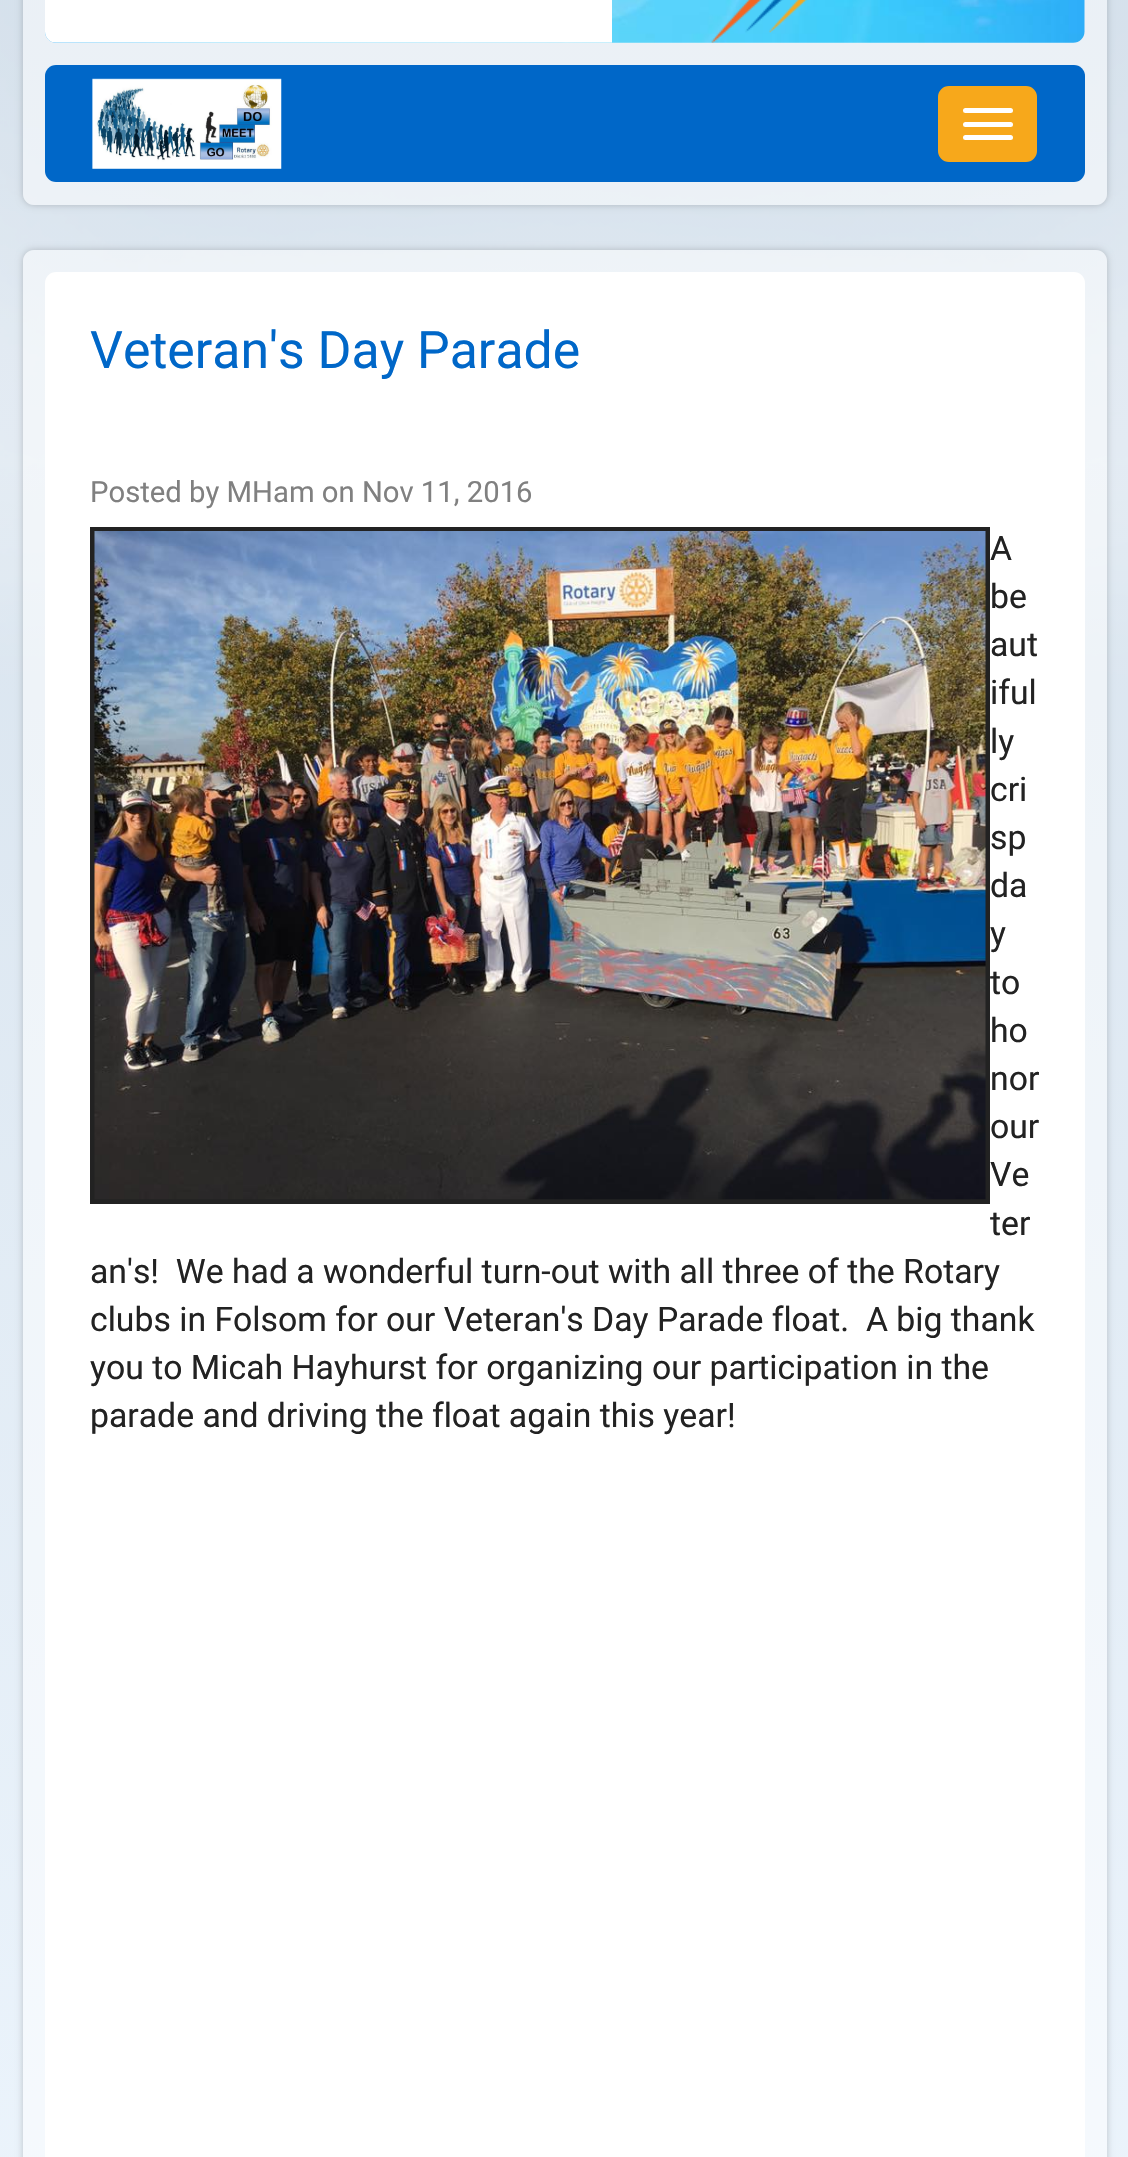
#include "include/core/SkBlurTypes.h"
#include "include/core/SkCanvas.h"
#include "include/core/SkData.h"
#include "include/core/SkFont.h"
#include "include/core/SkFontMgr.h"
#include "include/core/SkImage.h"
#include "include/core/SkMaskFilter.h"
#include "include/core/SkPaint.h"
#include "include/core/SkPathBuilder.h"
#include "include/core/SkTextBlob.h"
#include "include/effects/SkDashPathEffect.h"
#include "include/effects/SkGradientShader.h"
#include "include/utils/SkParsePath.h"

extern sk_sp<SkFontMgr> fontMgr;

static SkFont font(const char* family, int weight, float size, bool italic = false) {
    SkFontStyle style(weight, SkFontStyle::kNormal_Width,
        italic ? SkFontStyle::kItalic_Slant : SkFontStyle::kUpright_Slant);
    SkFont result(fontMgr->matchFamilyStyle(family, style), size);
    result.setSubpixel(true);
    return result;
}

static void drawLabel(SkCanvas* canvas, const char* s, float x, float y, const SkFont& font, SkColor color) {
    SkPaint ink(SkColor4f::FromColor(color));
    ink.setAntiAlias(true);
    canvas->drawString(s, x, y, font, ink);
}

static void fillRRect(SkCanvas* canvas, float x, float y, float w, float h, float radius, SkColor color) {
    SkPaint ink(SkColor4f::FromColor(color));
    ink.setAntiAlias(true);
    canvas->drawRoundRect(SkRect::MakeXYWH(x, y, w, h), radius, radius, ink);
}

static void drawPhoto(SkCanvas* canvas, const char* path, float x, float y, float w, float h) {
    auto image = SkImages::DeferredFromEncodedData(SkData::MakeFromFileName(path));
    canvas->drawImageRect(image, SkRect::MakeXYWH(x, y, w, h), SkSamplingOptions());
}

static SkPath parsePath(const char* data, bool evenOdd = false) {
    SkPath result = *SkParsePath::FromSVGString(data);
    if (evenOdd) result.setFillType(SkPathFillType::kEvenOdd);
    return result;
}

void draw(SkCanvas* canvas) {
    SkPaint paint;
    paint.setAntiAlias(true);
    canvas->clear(0xFFFFFFFF);
    drawPhoto(canvas, "assets/img1.png", 0, 0, 1128, 2157);
    canvas->save();
    canvas->clipPath(parsePath("M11 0H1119V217H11ZM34-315H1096C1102-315 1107-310 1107-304V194C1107 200 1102 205 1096 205H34C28 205 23 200 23 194V-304C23-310 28-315 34-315Z", true), true);
    paint.setColor(0x33000000);
    paint.setMaskFilter(SkMaskFilter::MakeBlur(kNormal_SkBlurStyle, 3.5f));
    canvas->drawRoundRect(SkRect::MakeXYWH(23, -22, 1084, 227), 11, 11, paint);
    paint.setMaskFilter(nullptr);
    canvas->restore();
    fillRRect(canvas, 23, -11, 1084, 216, 11, 0x80FFFFFF);
    drawPhoto(canvas, "assets/img2.png", 45, 0, 1040, 43);
    drawPhoto(canvas, "assets/img3.png", 45, 0, 567, 43);
    drawPhoto(canvas, "assets/img4.png", 711, 0, 97, 43);
    fillRRect(canvas, 45, 65, 1040, 117, 11, 0xFF0067C8);
    drawPhoto(canvas, "assets/img5.png", 92, 78, 190, 91);
    paint.setColor(0xFFF7A81B);
    canvas->drawRoundRect(SkRect::MakeXYWH(939, 87, 97, 74), 10, 10, paint);
    paint.setStroke(true);
    paint.setStrokeWidth(2);
    canvas->drawRoundRect(SkRect::MakeXYWH(939, 87, 97, 74), 10, 10, paint);
    fillRRect(canvas, 963, 108, 50, 5, 2.5f, 0xFFFFFFFF);
    fillRRect(canvas, 963, 122, 50, 5, 2.5f, 0xFFFFFFFF);
    fillRRect(canvas, 963, 135, 50, 5, 2.5f, 0xFFFFFFFF);
    canvas->save();
    canvas->clipPath(parsePath("M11 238H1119V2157H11ZM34 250H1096C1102 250 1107 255 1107 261V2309C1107 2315 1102 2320 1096 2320H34C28 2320 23 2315 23 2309V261C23 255 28 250 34 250Z", true), true);
    paint.setStroke(false);
    paint.setColor(0x33000000);
    paint.setMaskFilter(SkMaskFilter::MakeBlur(kNormal_SkBlurStyle, 3.5f));
    canvas->drawRoundRect(SkRect::MakeXYWH(23, 250, 1084, 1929), 11, 11, paint);
    paint.setMaskFilter(nullptr);
    canvas->restore();
    fillRRect(canvas, 23, 250, 1084, 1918, 11, 0x80FFFFFF);
    fillRRect(canvas, 45, 272, 1040, 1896, 11, 0xFFFFFFFF);
    SkFont font1 = font("Roboto", 400, 51.75f);
    drawLabel(canvas, "Veteran's Day Parade", 90, 368, font1, 0xFF0067C8);
    SkFont font2 = font("Roboto", 400, 29.25f);
    drawLabel(canvas, "Posted by MHam on Nov 11, 2016", 90, 502, font2, 0xFF808080);
    paint.setStroke(true);
    paint.setStrokeWidth(5);
    paint.setColor(0xFF222222);
    canvas->drawRect(SkRect::MakeXYWH(92.5f, 529.5f, 895, 672), paint);
    drawPhoto(canvas, "assets/img6.png", 94, 531, 892, 669);
    SkFont font3 = font("Roboto", 400, 33.75f);
    drawLabel(canvas, "A", 990, 560, font3, 0xFF222222);
    drawLabel(canvas, "be", 990, 608, font3, 0xFF222222);
    drawLabel(canvas, "aut", 990, 656, font3, 0xFF222222);
    drawLabel(canvas, "iful", 990, 704, font3, 0xFF222222);
    drawLabel(canvas, "ly", 990, 753, font3, 0xFF222222);
    drawLabel(canvas, "cri", 990, 801, font3, 0xFF222222);
    drawLabel(canvas, "sp", 990, 849, font3, 0xFF222222);
    drawLabel(canvas, "da", 990, 897, font3, 0xFF222222);
    drawLabel(canvas, "y", 990, 945, font3, 0xFF222222);
    drawLabel(canvas, "to", 990, 994, font3, 0xFF222222);
    drawLabel(canvas, "ho", 990, 1042, font3, 0xFF222222);
    drawLabel(canvas, "nor", 990, 1090, font3, 0xFF222222);
    drawLabel(canvas, "our", 990, 1138, font3, 0xFF222222);
    drawLabel(canvas, "Ve", 990, 1186, font3, 0xFF222222);
    drawLabel(canvas, "ter", 990, 1235, font3, 0xFF222222);
    drawLabel(canvas, "an's!  We had a wonderful turn-out with all three of the Rotary", 90, 1283, font3, 0xFF222222);
    drawLabel(canvas, "clubs in Folsom for our Veteran's Day Parade float.  A big thank", 90, 1331, font3, 0xFF222222);
    drawLabel(canvas, "you to Micah Hayhurst for organizing our participation in the", 90, 1379, font3, 0xFF222222);
    drawLabel(canvas, "parade and driving the float again this year!", 90, 1427, font3, 0xFF222222);
}
